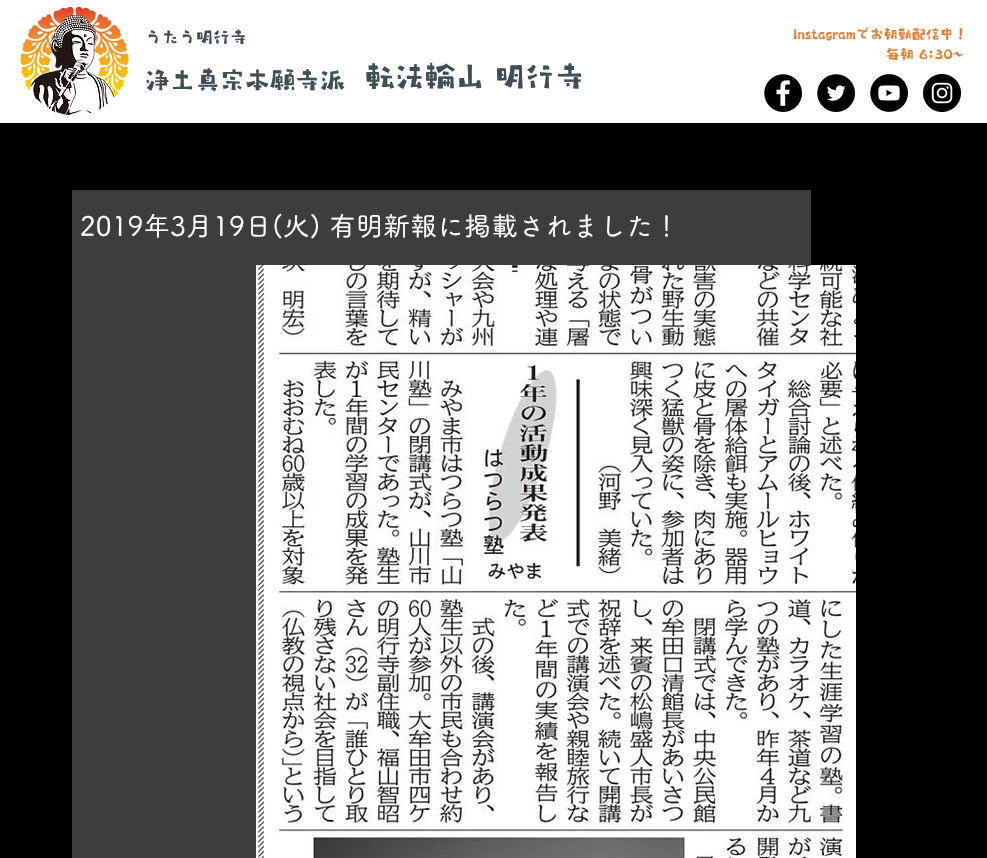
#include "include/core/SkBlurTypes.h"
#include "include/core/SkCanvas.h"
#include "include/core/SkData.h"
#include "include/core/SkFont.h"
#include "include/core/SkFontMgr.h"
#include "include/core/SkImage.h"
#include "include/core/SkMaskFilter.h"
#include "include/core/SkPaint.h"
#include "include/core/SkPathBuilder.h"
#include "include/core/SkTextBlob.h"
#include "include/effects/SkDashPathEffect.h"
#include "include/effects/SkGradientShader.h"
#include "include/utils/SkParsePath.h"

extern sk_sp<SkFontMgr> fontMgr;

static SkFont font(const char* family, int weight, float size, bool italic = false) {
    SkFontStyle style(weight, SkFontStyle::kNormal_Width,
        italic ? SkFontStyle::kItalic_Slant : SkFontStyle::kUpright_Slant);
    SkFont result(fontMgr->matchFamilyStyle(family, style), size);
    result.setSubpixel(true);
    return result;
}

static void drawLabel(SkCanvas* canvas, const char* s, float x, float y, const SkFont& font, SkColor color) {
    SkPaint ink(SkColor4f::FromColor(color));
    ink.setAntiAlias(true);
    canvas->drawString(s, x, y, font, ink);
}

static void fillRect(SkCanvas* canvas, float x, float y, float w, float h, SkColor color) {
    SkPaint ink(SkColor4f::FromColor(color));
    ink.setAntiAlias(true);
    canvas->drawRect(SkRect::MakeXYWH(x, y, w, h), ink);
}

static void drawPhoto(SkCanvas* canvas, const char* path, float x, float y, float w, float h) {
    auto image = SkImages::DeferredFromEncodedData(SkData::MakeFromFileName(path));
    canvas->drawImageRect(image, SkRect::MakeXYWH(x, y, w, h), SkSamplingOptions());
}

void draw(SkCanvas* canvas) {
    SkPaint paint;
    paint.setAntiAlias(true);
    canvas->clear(0xFF000000);
    fillRect(canvas, 0, 0, 987, 123, 0xFFFFFFFF);
    drawPhoto(canvas, "assets/img1.png", 20, 6, 109, 110);
    SkFont font1 = font("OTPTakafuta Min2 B", 700, 17);
    drawLabel(canvas, "うたう明行寺", 145, 43, font1, 0xFF3C4F57);
    SkFont font2 = font("OTPTakafuta Min2 B", 700, 14);
    drawLabel(canvas, "Instagramでお朝勤配信中！", 793, 39, font2, 0xFFEA792C);
    drawLabel(canvas, "毎朝 6:30~", 886, 59, font2, 0xFFEA792C);
    SkFont font3 = font("OTPTakafuta Min2 B", 700, 25);
    drawLabel(canvas, "浄土真宗本願寺派", 145, 89, font3, 0xFF3C4F57);
    SkFont font4 = font("OTPTakafuta Min2 B", 700, 30);
    drawLabel(canvas, "転法輪山 明行寺", 365, 87, font4, 0xFF3C4F57);
    drawPhoto(canvas, "assets/img2.png", 764, 74, 38, 38);
    drawPhoto(canvas, "assets/img3.png", 817, 74, 38, 38);
    drawPhoto(canvas, "assets/img4.png", 870, 74, 38, 38);
    drawPhoto(canvas, "assets/img5.png", 923, 74, 38, 38);
    fillRect(canvas, 72, 190, 739, 668, 0xFF3D3D3D);
    SkFont font5 = font("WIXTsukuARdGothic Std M", 500, 27);
    drawLabel(canvas, "2019年3月19日(火) 有明新報に掲載されました！", 80, 236, font5, 0xFFFFFFFF);
    drawPhoto(canvas, "assets/img6.png", 256, 265, 600, 593);
}
